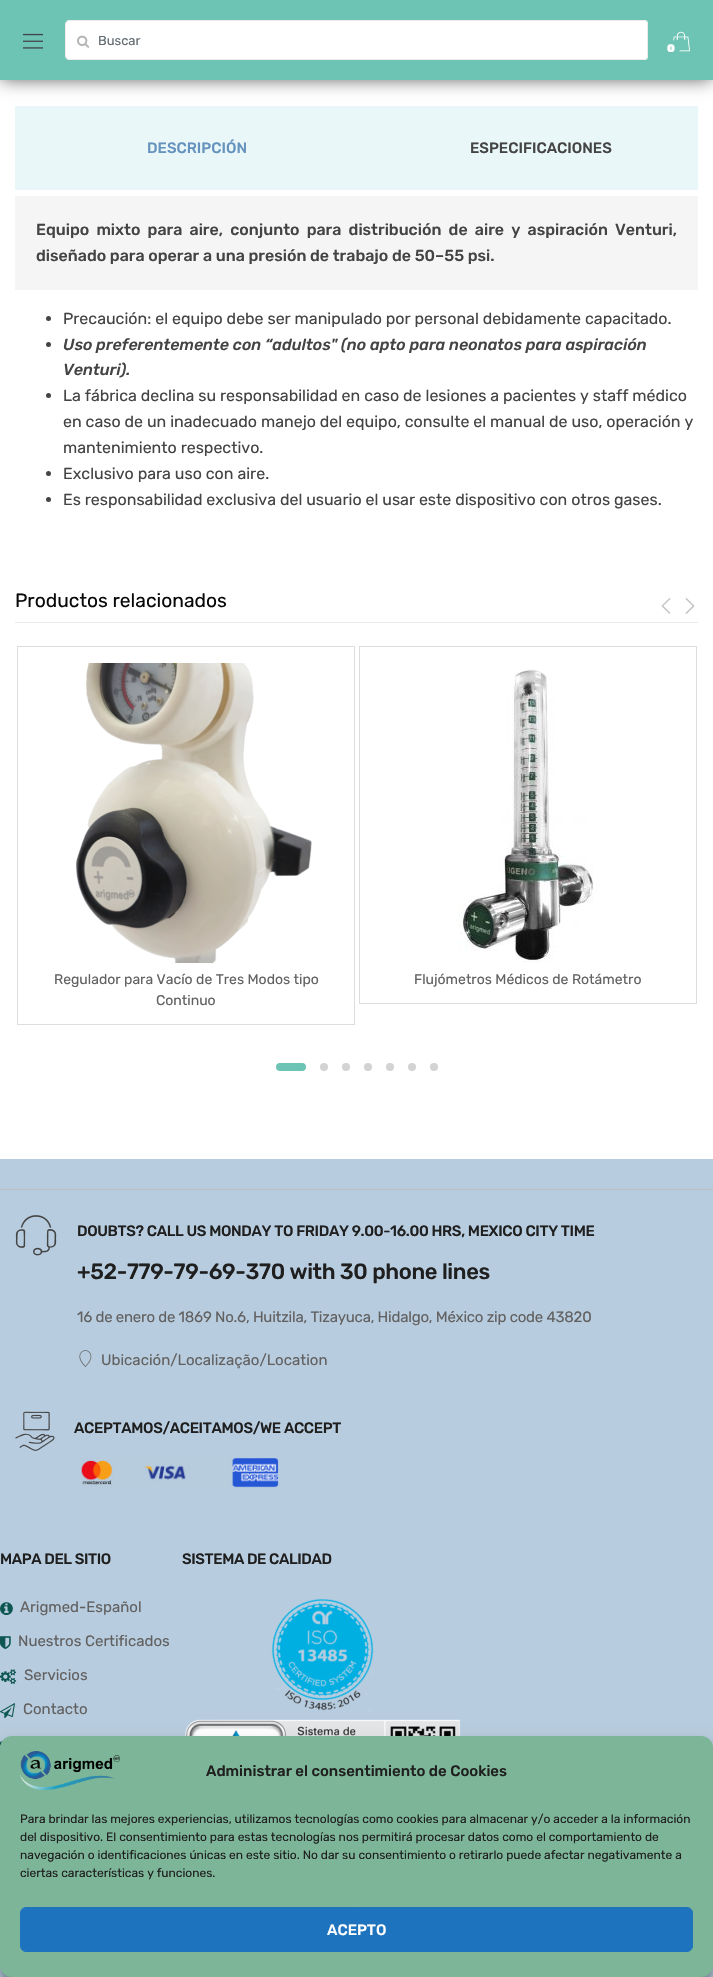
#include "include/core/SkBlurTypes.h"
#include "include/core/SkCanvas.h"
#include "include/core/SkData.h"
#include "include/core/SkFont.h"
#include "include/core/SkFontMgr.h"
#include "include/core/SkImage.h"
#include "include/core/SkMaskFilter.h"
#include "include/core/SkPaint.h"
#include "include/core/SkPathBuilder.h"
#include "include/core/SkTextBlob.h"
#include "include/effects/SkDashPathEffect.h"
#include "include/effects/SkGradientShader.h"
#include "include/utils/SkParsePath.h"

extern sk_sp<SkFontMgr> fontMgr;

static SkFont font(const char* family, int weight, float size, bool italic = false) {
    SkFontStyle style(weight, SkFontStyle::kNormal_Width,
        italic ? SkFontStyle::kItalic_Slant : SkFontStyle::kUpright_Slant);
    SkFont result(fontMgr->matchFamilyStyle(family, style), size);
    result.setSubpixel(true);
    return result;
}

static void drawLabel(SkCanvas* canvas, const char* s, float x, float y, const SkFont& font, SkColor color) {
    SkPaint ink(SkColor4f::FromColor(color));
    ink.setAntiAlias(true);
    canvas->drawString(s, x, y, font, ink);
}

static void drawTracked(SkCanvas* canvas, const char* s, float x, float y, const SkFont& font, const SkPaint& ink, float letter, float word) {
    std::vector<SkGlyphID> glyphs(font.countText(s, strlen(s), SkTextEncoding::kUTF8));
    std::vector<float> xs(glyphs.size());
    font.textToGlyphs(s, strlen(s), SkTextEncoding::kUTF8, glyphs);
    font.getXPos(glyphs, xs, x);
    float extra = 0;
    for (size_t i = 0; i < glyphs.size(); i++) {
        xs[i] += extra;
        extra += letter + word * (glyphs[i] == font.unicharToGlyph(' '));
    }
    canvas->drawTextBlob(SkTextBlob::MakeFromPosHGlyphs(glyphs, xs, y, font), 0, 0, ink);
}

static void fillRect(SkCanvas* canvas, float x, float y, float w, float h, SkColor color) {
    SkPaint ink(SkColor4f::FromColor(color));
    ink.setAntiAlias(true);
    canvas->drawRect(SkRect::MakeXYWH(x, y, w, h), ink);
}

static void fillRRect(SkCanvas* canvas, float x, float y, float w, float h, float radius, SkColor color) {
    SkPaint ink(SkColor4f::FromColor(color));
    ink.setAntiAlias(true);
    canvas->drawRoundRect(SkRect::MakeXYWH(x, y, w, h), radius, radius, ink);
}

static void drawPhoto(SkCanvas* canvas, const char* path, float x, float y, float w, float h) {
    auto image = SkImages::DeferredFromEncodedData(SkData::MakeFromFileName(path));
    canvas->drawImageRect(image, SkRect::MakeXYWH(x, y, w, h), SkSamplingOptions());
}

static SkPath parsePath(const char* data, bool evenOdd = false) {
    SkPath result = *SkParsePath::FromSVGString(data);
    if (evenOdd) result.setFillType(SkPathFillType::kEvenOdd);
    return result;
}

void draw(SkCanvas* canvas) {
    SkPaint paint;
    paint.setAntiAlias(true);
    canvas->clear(0xFFFFFFFF);
    paint.setColor(0xA8000000);
    paint.setMaskFilter(SkMaskFilter::MakeBlur(kNormal_SkBlurStyle, 8.5f));
    canvas->drawRect(SkRect::MakeXYWH(1, 1, 711, 78), paint);
    paint.setMaskFilter(nullptr);
    fillRect(canvas, 0, 0, 713, 80, 0xFF6DC4B4);
    drawPhoto(canvas, "assets/img1.png", 23, 33, 20, 16);
    canvas->save();
    canvas->clipPath(parsePath("M68 20H645C646.5 20 648 21.5 648 23V57C648 58.5 646.5 60 645 60H68C66.5 60 65 58.5 65 57V23C65 21.5 66.5 20 68 20Z"), true);
    paint.setColor(0xFFFFFFFF);
    canvas->drawPath(parsePath("M70 20H645C646.5 20 648 21.5 648 23V57C648 58.5 646.5 60 645 60H70C67 60 65 58 65 55V25C65 22 67 20 70 20Z"), paint);
    canvas->restore();
    paint.setStroke(true);
    paint.setStrokeWidth(1);
    paint.setColor(0xFFEBEBEB);
    canvas->drawPath(parsePath("M70 20.5H645C646.5 20.5 647.5 21.5 647.5 23V57C647.5 58.5 646.5 59.5 645 59.5H70C67.5 59.5 65.5 57.5 65.5 55V25C65.5 22.5 67.5 20.5 70 20.5Z"), paint);
    drawPhoto(canvas, "assets/img2.png", 77, 35, 12, 13);
    SkFont font1 = font("Rubik", 400, 13);
    drawLabel(canvas, "Buscar", 98, 45, font1, 0xFF636C72);
    drawPhoto(canvas, "assets/img3.png", 673, 31, 17, 21);
    paint.setStroke(false);
    paint.setColor(0xFF6DC4B4);
    canvas->drawCircle(671.5f, 48.5f, 8.5f, paint);
    SkFont font2 = font("Rubik", 900, 11);
    drawLabel(canvas, "0", 667, 52, font2, 0xFFFFFFFF);
    fillRect(canvas, 15, 106, 683, 84, 0xFFEAF7F8);
    SkFont font3 = font("Rubik", 500, 15);
    drawLabel(canvas, "DESCRIPCIÓN", 147, 153, font3, 0xFF6593BE);
    drawLabel(canvas, "ESPECIFICACIONES", 470, 153, font3, 0xFF444444);
    fillRect(canvas, 15, 196, 683, 94, 0xFFF5F5F5);
    SkFont font4 = font("Rubik", 500, 16);
    paint.setColor(0xFF444444);
    drawTracked(canvas, "Equipo mixto para aire, conjunto para distribución de aire y aspiración Venturi,", 36, 235, font4, paint, 0, 3.5f);
    drawLabel(canvas, "diseñado para operar a una presión de trabajo de 50–55 psi.", 36, 261, font4, 0xFF444444);
    canvas->drawCircle(48.5f, 318.5f, 2.5f, paint);
    SkFont font5 = font("Rubik", 400, 16);
    drawLabel(canvas, "Precaución: el equipo debe ser manipulado por personal debidamente capacitado.", 63, 324, font5, 0xFF444444);
    canvas->drawCircle(48.5f, 344.5f, 2.5f, paint);
    SkFont font6 = font("Rubik", 500, 16, true);
    drawLabel(canvas, "Uso preferentemente con “adultos\" (no apto para neonatos para aspiración", 63, 350, font6, 0xFF444444);
    drawLabel(canvas, "Venturi).", 63, 375, font6, 0xFF444444);
    canvas->drawCircle(48.5f, 395.5f, 2.5f, paint);
    drawLabel(canvas, "La fábrica declina su responsabilidad en caso de lesiones a pacientes y staff médico", 63, 401, font5, 0xFF444444);
    drawLabel(canvas, "en caso de un inadecuado manejo del equipo, consulte el manual de uso, operación y", 63, 427, font5, 0xFF444444);
    drawLabel(canvas, "mantenimiento respectivo.", 63, 453, font5, 0xFF444444);
    canvas->drawCircle(48.5f, 473.5f, 2.5f, paint);
    drawLabel(canvas, "Exclusivo para uso con aire.", 63, 479, font5, 0xFF444444);
    canvas->drawCircle(48.5f, 499.5f, 2.5f, paint);
    drawLabel(canvas, "Es responsabilidad exclusiva del usuario el usar este dispositivo con otros gases.", 63, 505, font5, 0xFF444444);
    fillRect(canvas, 15, 622, 683, 1, 0xFFEBEBEB);
    SkFont font7 = font("Rubik", 400, 19.25f);
    drawLabel(canvas, "Productos relacionados", 15, 607, font7, 0xFF090909);
    drawPhoto(canvas, "assets/img4.png", 661, 598, 10, 16);
    drawPhoto(canvas, "assets/img5.png", 685, 598, 10, 16);
    paint.setStroke(true);
    paint.setColor(0xFFDDDDDD);
    canvas->drawRect(SkRect::MakeXYWH(17.5f, 646.5f, 337, 378), paint);
    drawPhoto(canvas, "assets/img6.png", 75, 663, 237, 300);
    SkFont font8 = font("Rubik", 400, 14);
    drawLabel(canvas, "Regulador para Vacío de Tres Modos tipo", 54, 984, font8, 0xFF626060);
    drawLabel(canvas, "Continuo", 156, 1005, font8, 0xFF626060);
    canvas->drawRect(SkRect::MakeXYWH(359.5f, 646.5f, 337, 357), paint);
    drawPhoto(canvas, "assets/img7.png", 458, 669, 136, 294);
    drawLabel(canvas, "Flujómetros Médicos de Rotámetro", 414, 984, font8, 0xFF626060);
    fillRRect(canvas, 276, 1063, 30, 8, 4, 0xFF6DC4B4);
    paint.setStroke(false);
    paint.setColor(0xFFD3D3D3);
    canvas->drawCircle(324, 1067, 4, paint);
    canvas->drawCircle(346, 1067, 4, paint);
    canvas->drawCircle(368, 1067, 4, paint);
    canvas->drawCircle(390, 1067, 4, paint);
    canvas->drawCircle(412, 1067, 4, paint);
    canvas->drawCircle(434, 1067, 4, paint);
    fillRect(canvas, 0, 1159, 713, 818, 0xFFB7CCDE);
    fillRect(canvas, 0, 1189, 713, 1, 0xFFBEBEBE);
    drawPhoto(canvas, "assets/img8.png", 15, 1215, 42, 41);
    paint.setColor(0xFF1F1F1F);
    drawTracked(canvas, "DOUBTS? CALL US MONDAY TO FRIDAY 9.00-16.00 HRS, MEXICO CITY TIME", 77, 1236, font3, paint, -0.35f, 0);
    SkFont font9 = font("Rubik", 500, 22);
    drawTracked(canvas, "+52-779-79-69-370 with 30 phone lines", 77, 1279, font9, paint, -0.35f, 0);
    SkFont font10 = font("Rubik", 400, 15);
    paint.setColor(0xFF626060);
    drawTracked(canvas, "16 de enero de 1869 No.6, Huitzila, Tizayuca, Hidalgo, México zip code 43820", 77, 1322, font10, paint, -0.23f, 0);
    drawPhoto(canvas, "assets/img9.png", 79, 1350, 13, 17);
    drawLabel(canvas, "Ubicación/Localização/Location", 101, 1365, font10, 0xFF626060);
    drawPhoto(canvas, "assets/img10.png", 15, 1411, 40, 40);
    paint.setColor(0xFF1F1F1F);
    drawTracked(canvas, "ACEPTAMOS/ACEITAMOS/WE ACCEPT", 74, 1433, font3, paint, -0.35f, 0);
    drawPhoto(canvas, "assets/img11.png", 81, 1458, 198, 30);
    drawTracked(canvas, "MAPA DEL SITIO", 0, 1564, font3, paint, -0.4f, 0);
    drawPhoto(canvas, "assets/img12.png", 0, 1602, 13, 14);
    drawLabel(canvas, "Arigmed-Español", 20, 1612, font10, 0xFF626060);
    drawPhoto(canvas, "assets/img13.png", 0, 1636, 11, 13);
    drawLabel(canvas, "Nuestros Certificados", 18, 1646, font10, 0xFF626060);
    drawPhoto(canvas, "assets/img14.png", 0, 1669, 17, 15);
    drawLabel(canvas, "Servicios", 24, 1680, font10, 0xFF626060);
    drawPhoto(canvas, "assets/img15.png", 0, 1703, 15, 16);
    drawLabel(canvas, "Contacto", 23, 1714, font10, 0xFF626060);
    drawPhoto(canvas, "assets/img16.png", 0, 1741, 3, 5);
    drawTracked(canvas, "SISTEMA DE CALIDAD", 182, 1564, font3, paint, -0.4f, 0);
    drawPhoto(canvas, "assets/img17.png", 185, 1598, 276, 138);
    paint.setColor(0x3B000000);
    paint.setMaskFilter(SkMaskFilter::MakeBlur(kNormal_SkBlurStyle, 3));
    canvas->drawRoundRect(SkRect::MakeXYWH(0, 1742, 713, 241), 12, 12, paint);
    paint.setMaskFilter(nullptr);
    paint.setColor(0x30000000);
    paint.setMaskFilter(SkMaskFilter::MakeBlur(kNormal_SkBlurStyle, 10));
    canvas->drawRoundRect(SkRect::MakeXYWH(0, 1746, 713, 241), 12, 12, paint);
    paint.setMaskFilter(nullptr);
    fillRRect(canvas, 0, 1736, 713, 241, 12, 0xFF7CB597);
    drawPhoto(canvas, "assets/img18.png", 20, 1751, 100, 39);
    drawLabel(canvas, "Administrar el consentimiento de Cookies", 206, 1776, font3, 0xFF1F1F1F);
    SkFont font11 = font("Rubik", 400, 12);
    drawLabel(canvas, "Para brindar las mejores experiencias, utilizamos tecnologías como cookies para almacenar y/o acceder a la información", 20, 1823, font11, 0xFF1F1F1F);
    drawLabel(canvas, "del dispositivo. El consentimiento para estas tecnologías nos permitirá procesar datos como el comportamiento de", 20, 1841, font11, 0xFF1F1F1F);
    drawLabel(canvas, "navegación o identificaciones únicas en este sitio. No dar su consentimiento o retirarlo puede afectar negativamente a", 20, 1859, font11, 0xFF1F1F1F);
    drawLabel(canvas, "ciertas características y funciones.", 20, 1877, font11, 0xFF1F1F1F);
    paint.setColor(0xFF1E73BE);
    canvas->drawRoundRect(SkRect::MakeXYWH(20.5f, 1907.5f, 672, 44), 5.5f, 5.5f, paint);
    paint.setStroke(true);
    canvas->drawRoundRect(SkRect::MakeXYWH(20.5f, 1907.5f, 672, 44), 5.5f, 5.5f, paint);
    drawLabel(canvas, "ACEPTO", 327, 1935, font3, 0xFFFFFFFF);
}
